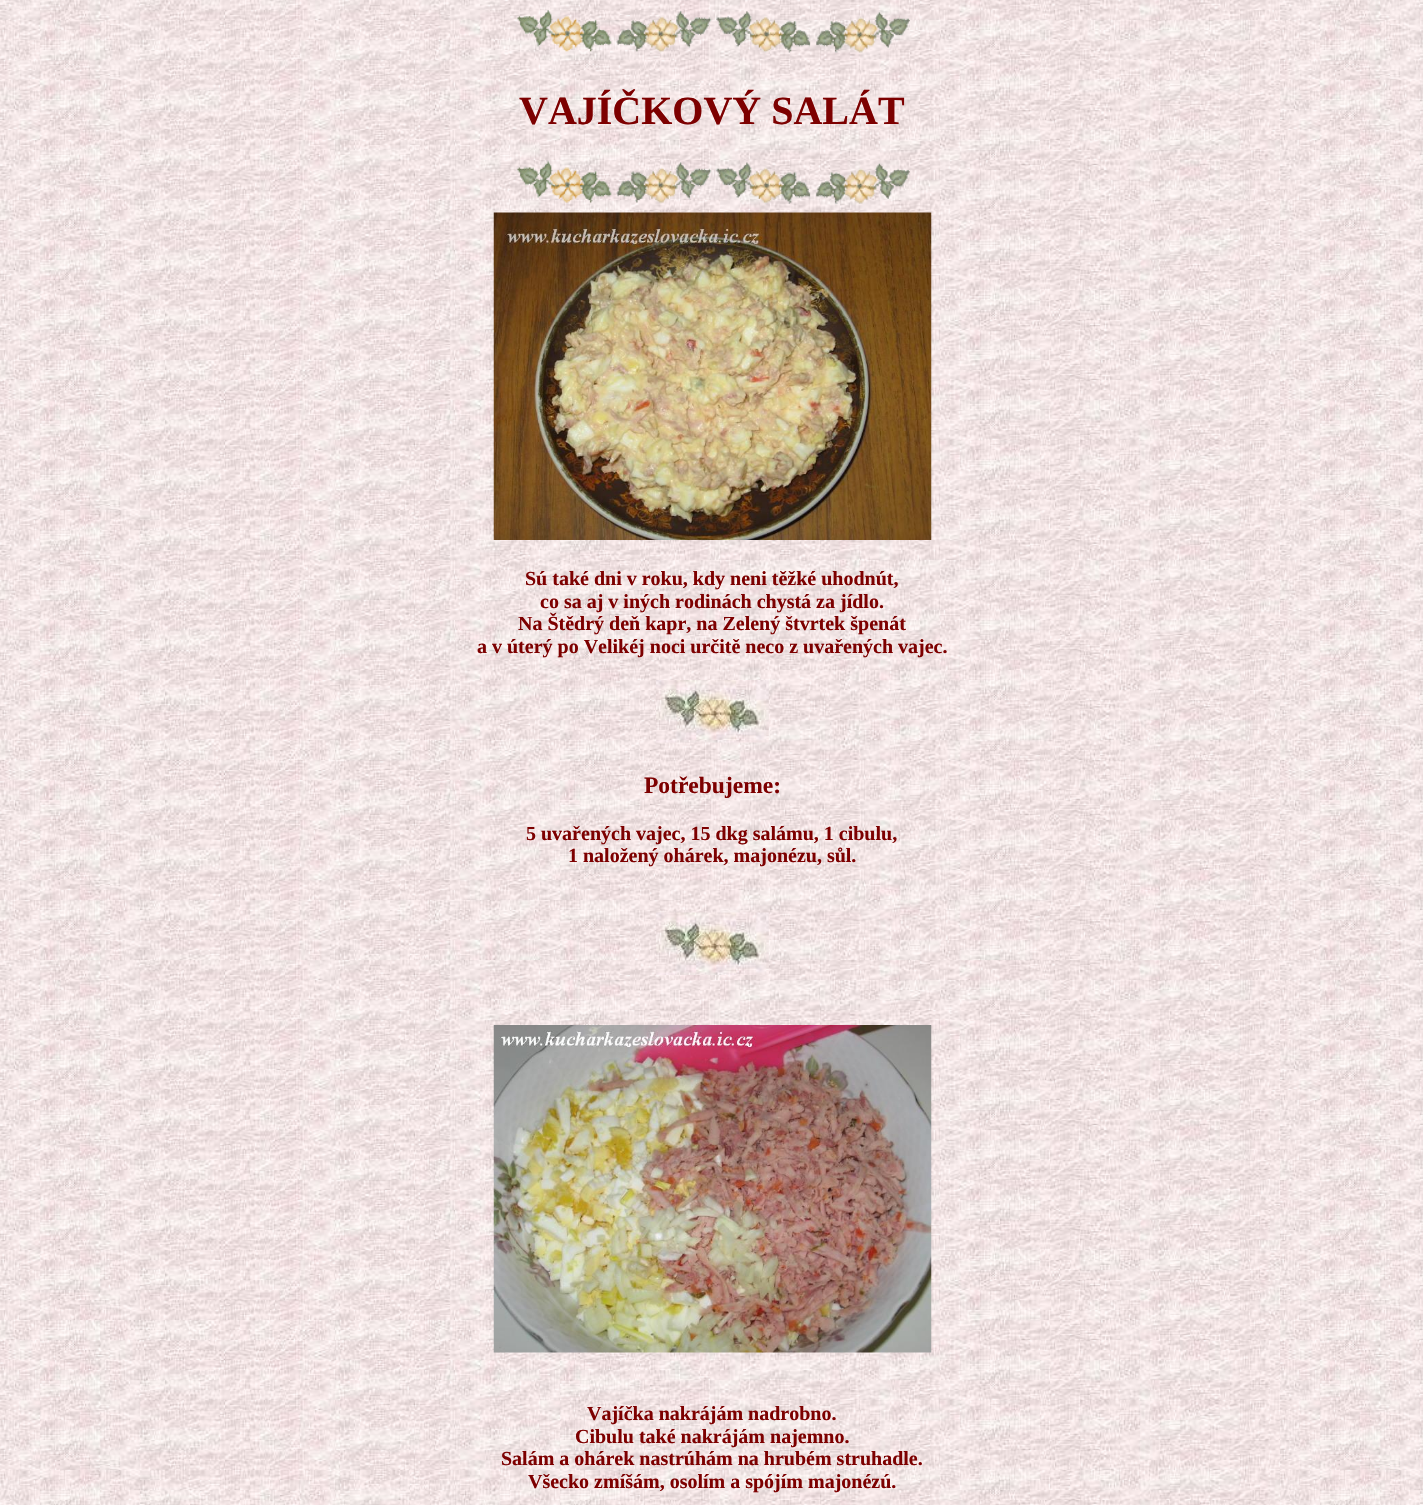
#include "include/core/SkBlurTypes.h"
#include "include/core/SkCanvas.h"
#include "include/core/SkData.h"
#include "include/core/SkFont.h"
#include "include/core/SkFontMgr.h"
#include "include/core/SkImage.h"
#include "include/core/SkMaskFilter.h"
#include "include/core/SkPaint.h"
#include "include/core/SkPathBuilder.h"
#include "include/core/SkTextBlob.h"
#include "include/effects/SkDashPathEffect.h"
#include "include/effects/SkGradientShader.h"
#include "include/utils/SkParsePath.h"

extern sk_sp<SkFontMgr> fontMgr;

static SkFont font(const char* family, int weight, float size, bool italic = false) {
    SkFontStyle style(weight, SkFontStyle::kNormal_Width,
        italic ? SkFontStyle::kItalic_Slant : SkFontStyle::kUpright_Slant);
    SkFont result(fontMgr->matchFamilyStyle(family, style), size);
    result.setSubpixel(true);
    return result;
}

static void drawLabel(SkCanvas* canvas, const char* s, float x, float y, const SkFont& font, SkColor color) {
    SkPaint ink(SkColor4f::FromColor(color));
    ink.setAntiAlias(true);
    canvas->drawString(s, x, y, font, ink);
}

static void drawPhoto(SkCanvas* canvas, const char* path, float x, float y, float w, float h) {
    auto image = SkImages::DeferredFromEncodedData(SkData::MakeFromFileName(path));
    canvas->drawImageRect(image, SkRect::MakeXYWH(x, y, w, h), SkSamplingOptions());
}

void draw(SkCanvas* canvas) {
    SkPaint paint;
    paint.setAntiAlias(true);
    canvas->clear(0xFFFFFFFF);
    drawPhoto(canvas, "assets/img1.png", 0, 0, 1423, 1505);
    drawPhoto(canvas, "assets/img2.png", 517, 10, 393, 43);
    SkFont font1 = font("Liberation Serif", 700, 40);
    drawLabel(canvas, "VAJÍČKOVÝ SALÁT", 519, 124, font1, 0xFF7D0000);
    drawPhoto(canvas, "assets/img3.png", 517, 161, 393, 43);
    drawPhoto(canvas, "assets/img4.png", 493, 212, 439, 328);
    SkFont font2 = font("Liberation Serif", 700, 20);
    drawLabel(canvas, "Sú také dni v roku, kdy neni těžké uhodnút,", 525, 585, font2, 0xFF7D0000);
    drawLabel(canvas, "co sa aj v iných rodinách chystá za jídlo.", 540, 608, font2, 0xFF7D0000);
    drawLabel(canvas, "Na Štědrý deň kapr, na Zelený štvrtek špenát", 518, 630, font2, 0xFF7D0000);
    drawLabel(canvas, "a v úterý po Velikéj noci určitě neco z uvařených vajec.", 477, 653, font2, 0xFF7D0000);
    drawPhoto(canvas, "assets/img5.png", 656, 680, 113, 63);
    SkFont font3 = font("Liberation Serif", 700, 23.5f);
    drawLabel(canvas, "Potřebujeme:", 644, 793, font3, 0xFF7D0000);
    drawLabel(canvas, "5 uvařených vajec, 15 dkg salámu, 1 cibulu,", 526, 840, font2, 0xFF7D0000);
    drawLabel(canvas, "1 naložený ohárek, majonézu, sůl.", 568, 862, font2, 0xFF7D0000);
    drawPhoto(canvas, "assets/img6.png", 656, 912, 113, 63);
    drawPhoto(canvas, "assets/img7.png", 493, 1025, 439, 328);
    drawLabel(canvas, "Vajíčka nakrájám nadrobno.", 587, 1420, font2, 0xFF7D0000);
    drawLabel(canvas, "Cibulu také nakrájám najemno.", 575, 1443, font2, 0xFF7D0000);
    drawLabel(canvas, "Salám a ohárek nastrúhám na hrubém struhadle.", 501, 1465, font2, 0xFF7D0000);
    drawLabel(canvas, "Všecko zmíšám, osolím a spójím majonézú.", 528, 1488, font2, 0xFF7D0000);
}
